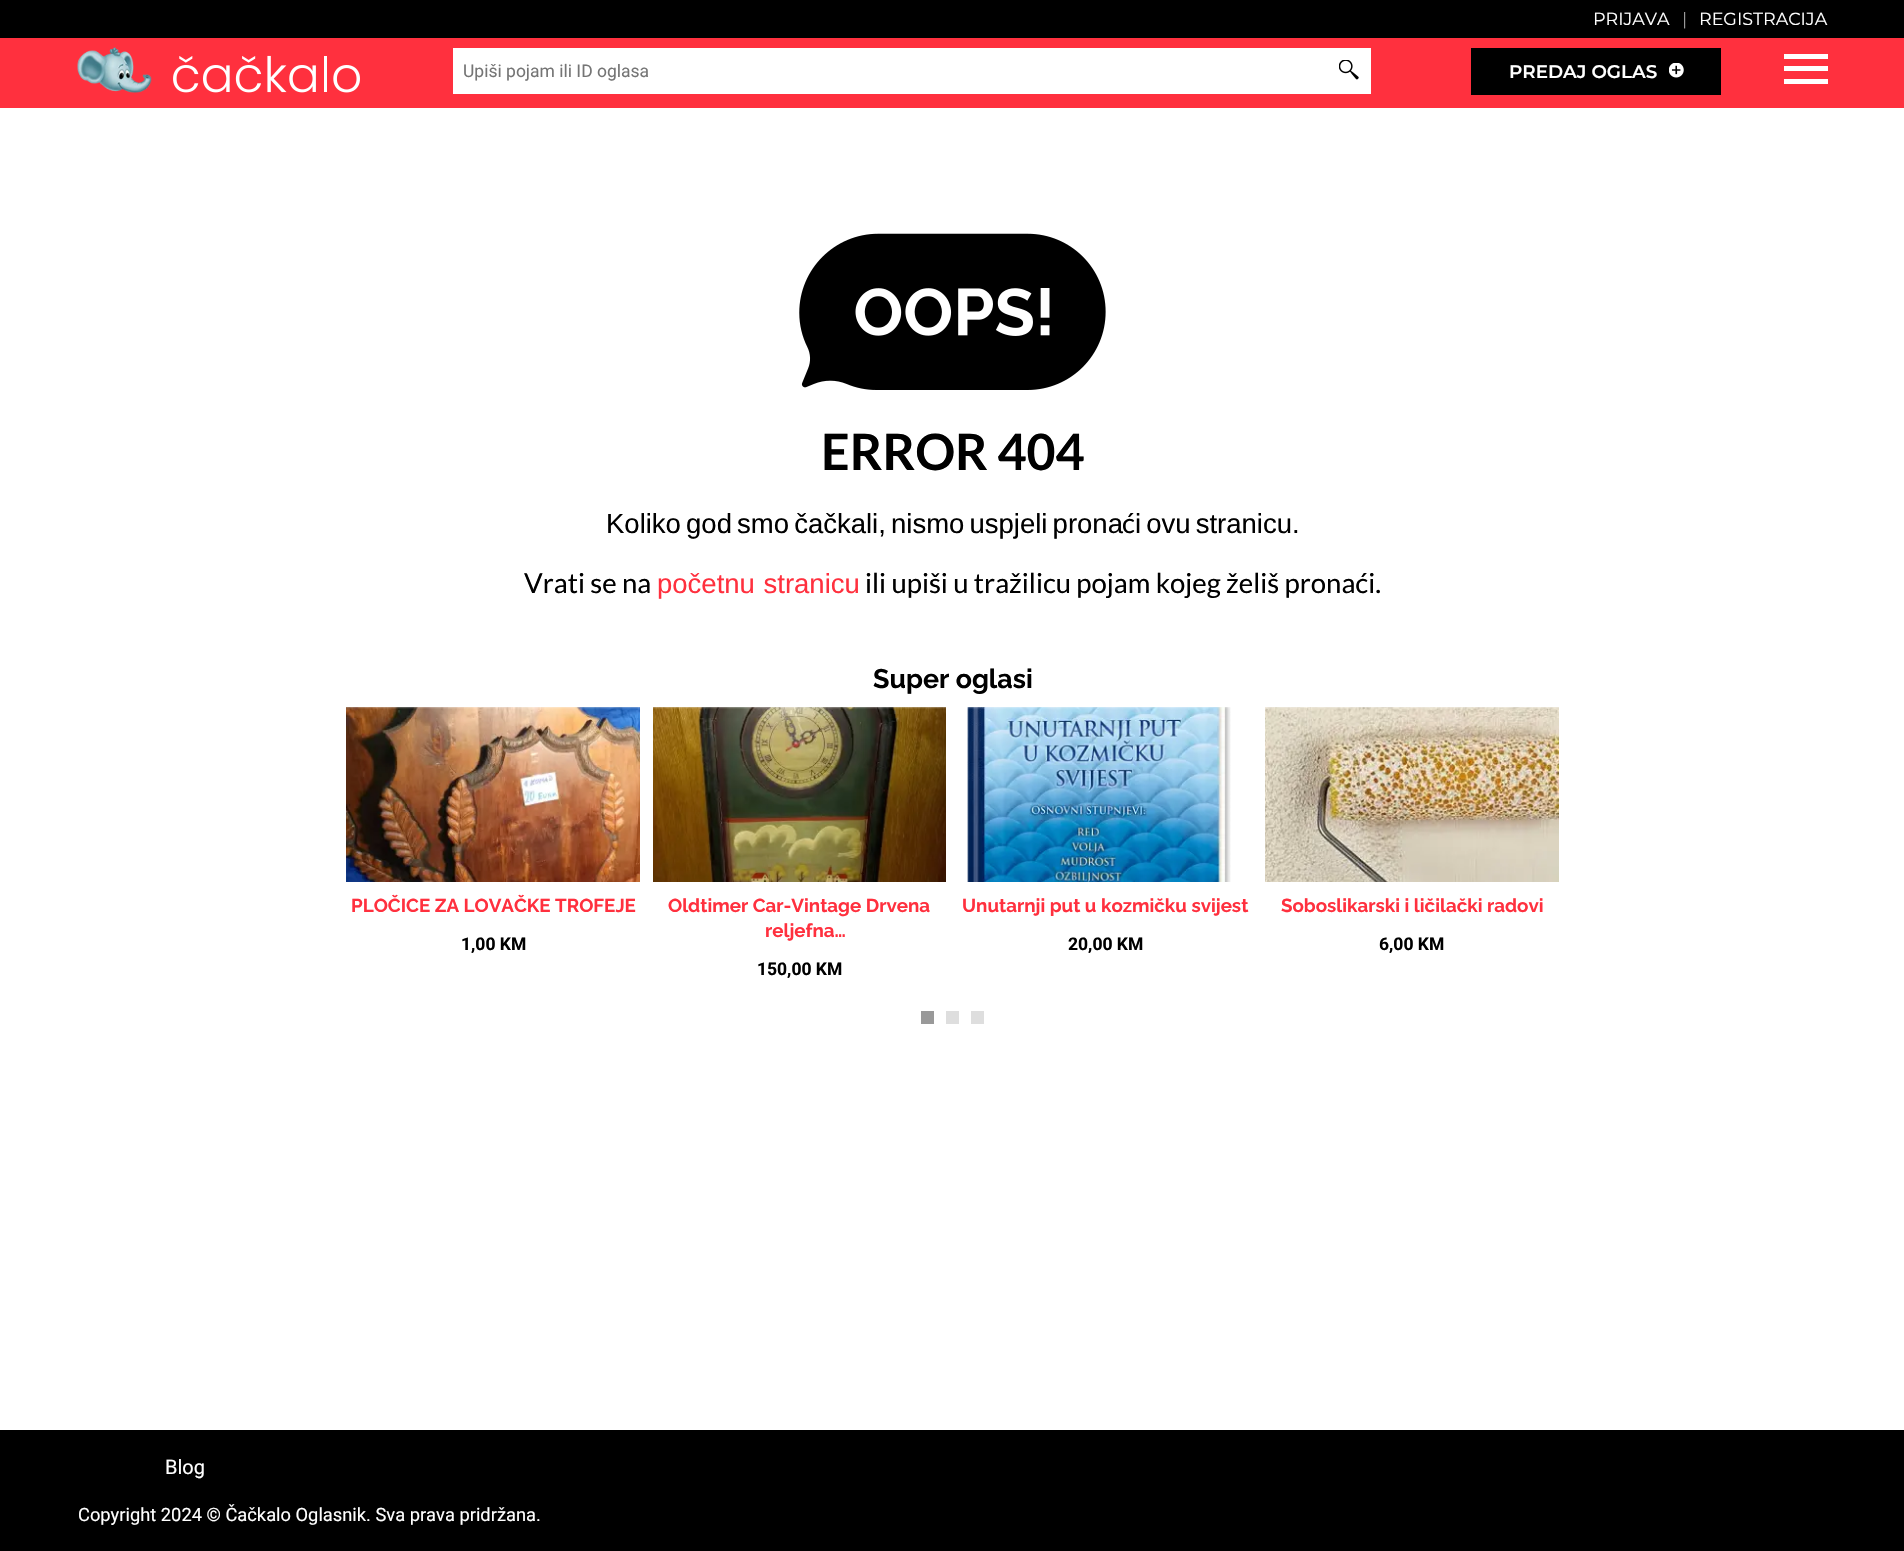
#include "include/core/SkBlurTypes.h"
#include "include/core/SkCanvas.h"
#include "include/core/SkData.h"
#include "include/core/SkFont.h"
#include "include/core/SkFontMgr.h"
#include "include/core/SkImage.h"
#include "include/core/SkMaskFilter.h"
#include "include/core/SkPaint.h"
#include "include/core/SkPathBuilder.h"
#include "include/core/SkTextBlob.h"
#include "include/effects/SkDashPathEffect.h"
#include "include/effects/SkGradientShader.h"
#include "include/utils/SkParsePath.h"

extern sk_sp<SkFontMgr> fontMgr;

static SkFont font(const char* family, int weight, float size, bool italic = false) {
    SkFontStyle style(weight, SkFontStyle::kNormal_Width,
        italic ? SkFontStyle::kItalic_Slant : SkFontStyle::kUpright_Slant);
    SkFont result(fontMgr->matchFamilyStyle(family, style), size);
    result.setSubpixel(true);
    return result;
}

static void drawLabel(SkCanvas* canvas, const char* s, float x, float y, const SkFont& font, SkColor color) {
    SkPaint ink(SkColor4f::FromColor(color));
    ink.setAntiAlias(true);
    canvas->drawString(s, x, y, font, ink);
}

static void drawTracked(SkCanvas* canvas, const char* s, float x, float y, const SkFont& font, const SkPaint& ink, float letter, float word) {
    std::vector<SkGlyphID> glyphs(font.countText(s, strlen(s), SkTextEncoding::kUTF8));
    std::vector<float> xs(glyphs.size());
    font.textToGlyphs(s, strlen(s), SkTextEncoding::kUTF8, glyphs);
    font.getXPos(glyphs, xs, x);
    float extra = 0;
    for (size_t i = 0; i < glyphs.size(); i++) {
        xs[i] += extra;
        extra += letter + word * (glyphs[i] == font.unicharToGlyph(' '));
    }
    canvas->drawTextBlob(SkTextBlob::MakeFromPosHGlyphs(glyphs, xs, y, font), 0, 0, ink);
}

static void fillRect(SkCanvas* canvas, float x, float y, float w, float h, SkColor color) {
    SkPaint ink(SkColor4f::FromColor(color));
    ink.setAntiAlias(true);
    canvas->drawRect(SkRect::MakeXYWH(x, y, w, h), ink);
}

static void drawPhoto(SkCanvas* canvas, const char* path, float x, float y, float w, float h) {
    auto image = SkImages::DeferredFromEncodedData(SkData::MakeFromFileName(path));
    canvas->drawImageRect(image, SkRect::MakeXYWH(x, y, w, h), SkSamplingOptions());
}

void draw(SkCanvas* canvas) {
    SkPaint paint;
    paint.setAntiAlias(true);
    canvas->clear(0xFFFFFFFF);
    fillRect(canvas, 0, 38, 1904, 70, 0xFFFF303E);
    fillRect(canvas, 0, 0, 1904, 38, 0xFF000000);
    SkFont font1 = font("Montserrat", 400, 17.5f);
    drawLabel(canvas, "PRIJAVA", 1593, 25, font1, 0xFFFFFFFF);
    drawLabel(canvas, "|", 1682, 25, font1, 0xFF999999);
    drawLabel(canvas, "REGISTRACIJA", 1699, 25, font1, 0xFFFFFFFF);
    drawPhoto(canvas, "assets/img1.png", 77, 47, 75, 46);
    drawPhoto(canvas, "assets/img2.png", 173, 55, 187, 38);
    fillRect(canvas, 453, 48, 918, 46, 0xFFFFFFFF);
    SkFont font2 = font("Roboto", 400, 17.5f);
    drawLabel(canvas, "Upiši pojam ili ID oglasa", 463, 77, font2, 0xFF757575);
    drawPhoto(canvas, "assets/img3.png", 1339, 60, 20, 20);
    fillRect(canvas, 1471, 48, 250, 47, 0xFF000000);
    SkFont font3 = font("Montserrat", 600, 18.3f);
    drawLabel(canvas, "PREDAJ OGLAS", 1509, 78, font3, 0xFFFFFFFF);
    drawPhoto(canvas, "assets/img4.png", 1669, 63, 15, 15);
    fillRect(canvas, 1784, 66, 44, 5, 0xFFFFFFFF);
    fillRect(canvas, 1784, 54, 44, 5, 0xFFFFFFFF);
    fillRect(canvas, 1784, 79, 44, 5, 0xFFFFFFFF);
    drawPhoto(canvas, "assets/img5.png", 799, 233, 307, 157);
    SkFont font4 = font("Lato", 700, 50);
    drawLabel(canvas, "ERROR 404", 821, 470, font4, 0xFF000000);
    SkFont font5 = font("Liberation Sans", 400, 27.5f);
    paint.setColor(0xFF000000);
    drawTracked(canvas, "Koliko god smo čačkali, nismo uspjeli prona", 606, 533, font5, paint, 0, -2.5f);
    SkFont font6 = font("Lato", 400, 27.5f);
    drawLabel(canvas, "ć", 1122, 533, font6, 0xFF000000);
    drawTracked(canvas, "i ovu stranicu.", 1135, 533, font5, paint, 0, -2.5f);
    drawLabel(canvas, "Vrati se na", 524, 593, font6, 0xFF000000);
    paint.setColor(0xFFFF303E);
    drawTracked(canvas, "početnu stranicu", 657, 593, font5, paint, 0, 1);
    drawLabel(canvas, "ili upiši u tražilicu pojam kojeg želiš pronaći.", 865, 593, font6, 0xFF000000);
    SkFont font7 = font("Raleway", 700, 26.75f);
    drawLabel(canvas, "Super oglasi", 873, 688, font7, 0xFF000000);
    drawPhoto(canvas, "assets/img6.png", 346, 707, 294, 175);
    SkFont font8 = font("Raleway", 700, 18.75f);
    drawLabel(canvas, "PLOČICE ZA LOVAČKE TROFEJE", 351, 912, font8, 0xFFFF303E);
    SkFont font9 = font("Roboto", 700, 17.5f);
    drawLabel(canvas, "1,00 KM", 461, 950, font9, 0xFF000000);
    drawPhoto(canvas, "assets/img7.png", 653, 707, 293, 175);
    drawLabel(canvas, "Oldtimer Car-Vintage Drvena", 668, 912, font8, 0xFFFF303E);
    drawLabel(canvas, "reljefna…", 765, 937, font8, 0xFFFF303E);
    drawLabel(canvas, "150,00 KM", 757, 975, font9, 0xFF000000);
    drawPhoto(canvas, "assets/img8.png", 967, 707, 264, 175);
    drawLabel(canvas, "Unutarnji put u kozmičku svijest", 962, 912, font8, 0xFFFF303E);
    drawLabel(canvas, "20,00 KM", 1068, 950, font9, 0xFF000000);
    drawPhoto(canvas, "assets/img9.png", 1265, 707, 294, 175);
    drawLabel(canvas, "Soboslikarski i ličilački radovi", 1281, 912, font8, 0xFFFF303E);
    drawLabel(canvas, "6,00 KM", 1379, 950, font9, 0xFF000000);
    fillRect(canvas, 921, 1011, 13, 13, 0xFF999999);
    fillRect(canvas, 946, 1011, 13, 13, 0xFFDEDEDE);
    fillRect(canvas, 971, 1011, 13, 13, 0xFFDEDEDE);
    fillRect(canvas, 0, 1430, 1904, 121, 0xFF000000);
    SkFont font10 = font("Roboto", 400, 20);
    drawLabel(canvas, "Blog", 165, 1474, font10, 0xFFFFFFFF);
    SkFont font11 = font("Roboto", 400, 18.3f);
    drawLabel(canvas, "Copyright 2024 © Čačkalo Oglasnik. Sva prava pridržana.", 78, 1521, font11, 0xFFFFFFFF);
}
